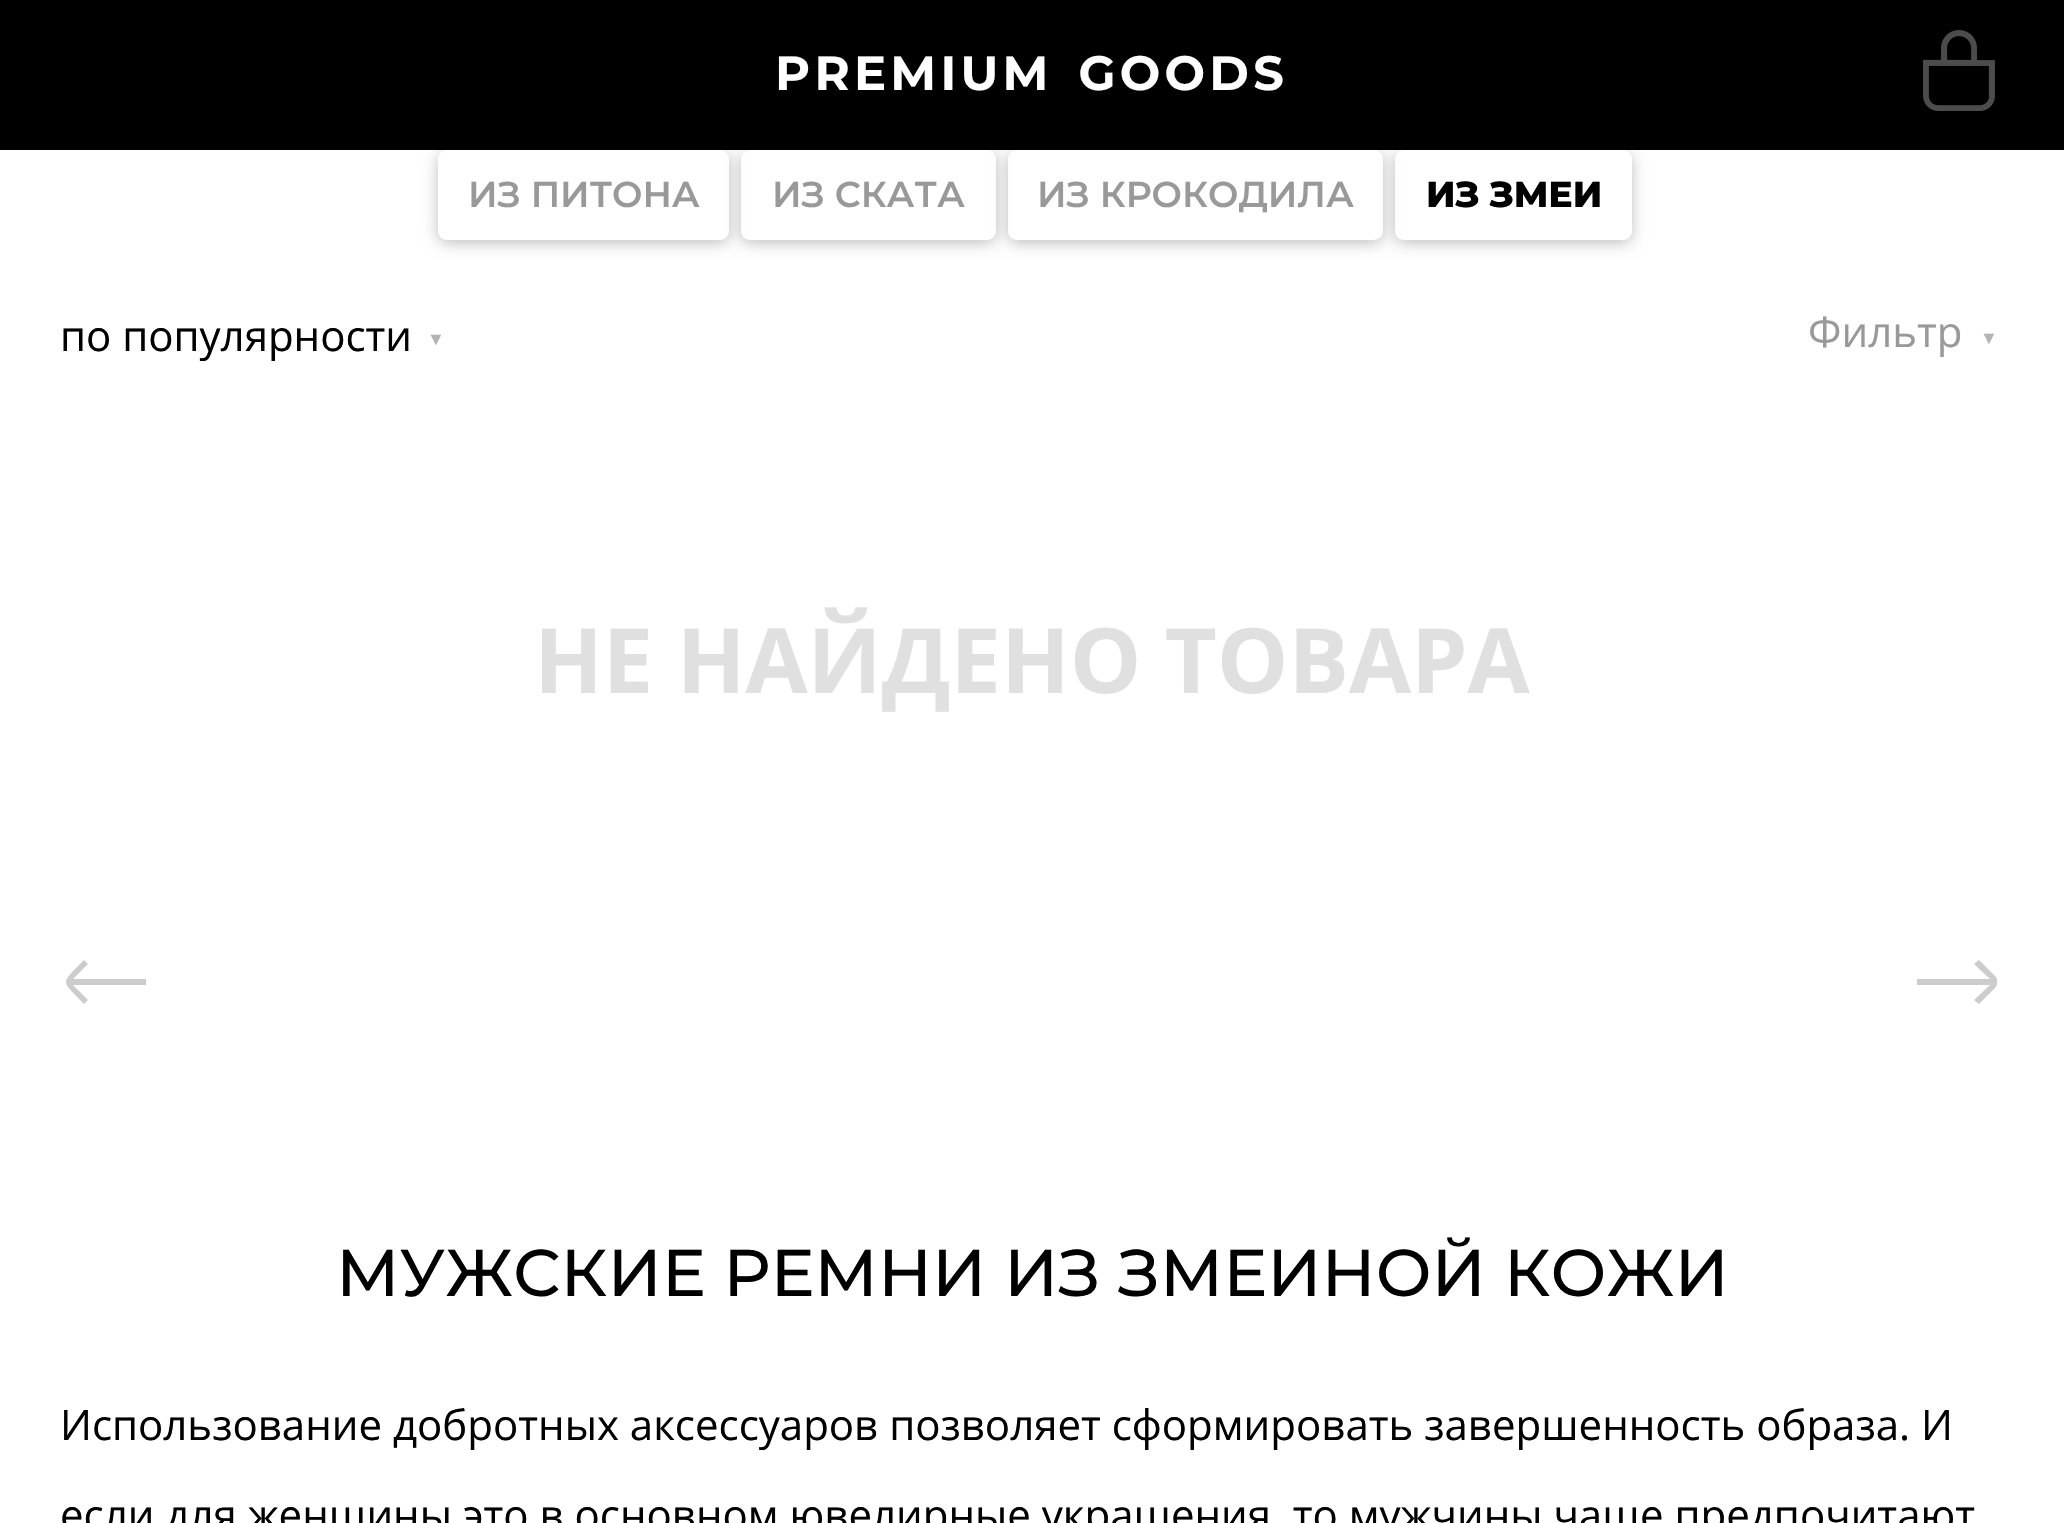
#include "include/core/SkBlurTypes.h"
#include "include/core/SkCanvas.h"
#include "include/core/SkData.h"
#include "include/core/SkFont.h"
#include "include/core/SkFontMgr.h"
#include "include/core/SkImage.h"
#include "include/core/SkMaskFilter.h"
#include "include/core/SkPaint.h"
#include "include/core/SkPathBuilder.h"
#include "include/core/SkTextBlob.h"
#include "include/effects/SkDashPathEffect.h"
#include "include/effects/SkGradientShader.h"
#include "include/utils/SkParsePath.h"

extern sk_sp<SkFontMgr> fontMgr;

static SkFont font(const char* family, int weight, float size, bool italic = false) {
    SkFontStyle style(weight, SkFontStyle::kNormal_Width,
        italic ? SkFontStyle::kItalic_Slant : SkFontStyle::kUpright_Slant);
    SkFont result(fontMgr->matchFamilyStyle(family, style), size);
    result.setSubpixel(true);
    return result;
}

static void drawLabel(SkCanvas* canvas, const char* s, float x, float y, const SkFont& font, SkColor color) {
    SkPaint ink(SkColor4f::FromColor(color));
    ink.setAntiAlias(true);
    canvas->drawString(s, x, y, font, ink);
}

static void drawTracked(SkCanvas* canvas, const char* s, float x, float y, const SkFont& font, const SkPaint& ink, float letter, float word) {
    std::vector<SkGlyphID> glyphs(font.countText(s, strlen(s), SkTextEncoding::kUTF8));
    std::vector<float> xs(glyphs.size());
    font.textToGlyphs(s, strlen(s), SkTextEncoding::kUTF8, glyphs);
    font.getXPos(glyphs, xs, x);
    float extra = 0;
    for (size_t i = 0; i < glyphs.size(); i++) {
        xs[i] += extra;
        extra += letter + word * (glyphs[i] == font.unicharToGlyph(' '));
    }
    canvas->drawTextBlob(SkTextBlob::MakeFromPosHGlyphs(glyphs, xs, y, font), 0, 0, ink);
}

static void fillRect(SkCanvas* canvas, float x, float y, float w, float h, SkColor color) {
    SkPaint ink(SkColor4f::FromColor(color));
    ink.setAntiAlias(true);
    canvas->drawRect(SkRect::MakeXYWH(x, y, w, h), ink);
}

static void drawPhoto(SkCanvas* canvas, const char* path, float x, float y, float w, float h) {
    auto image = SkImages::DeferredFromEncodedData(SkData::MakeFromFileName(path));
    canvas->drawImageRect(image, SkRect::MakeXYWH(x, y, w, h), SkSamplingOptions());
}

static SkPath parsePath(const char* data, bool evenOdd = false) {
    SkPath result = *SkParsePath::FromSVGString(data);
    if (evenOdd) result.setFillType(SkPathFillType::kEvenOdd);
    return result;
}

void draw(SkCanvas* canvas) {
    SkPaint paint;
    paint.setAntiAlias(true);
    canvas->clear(0xFFFFFFFF);
    fillRect(canvas, 0, 0, 2064, 150, 0xFF000000);
    SkFont font1 = font("Montserrat", 700, 48);
    paint.setColor(0xFFFFFFFF);
    drawTracked(canvas, "PREMIUM GOODS", 775, 90, font1, paint, 4.25f, 8);
    drawPhoto(canvas, "assets/img1.png", 1923, 30, 72, 81);
    canvas->save();
    canvas->clipPath(parsePath("M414 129H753V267H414ZM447 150H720C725 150 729 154 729 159V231C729 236 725 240 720 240H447C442 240 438 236 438 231V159C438 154 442 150 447 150Z", true), true);
    paint.setColor(0x40000000);
    paint.setMaskFilter(SkMaskFilter::MakeBlur(kNormal_SkBlurStyle, 7.5f));
    canvas->drawRoundRect(SkRect::MakeXYWH(438, 153, 291, 90), 9, 9, paint);
    paint.setMaskFilter(nullptr);
    canvas->restore();
    SkFont font2 = font("Montserrat", 600, 36);
    drawLabel(canvas, "ИЗ ПИТОНА", 468, 207, font2, 0xFF999999);
    canvas->save();
    canvas->clipPath(parsePath("M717 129H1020V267H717ZM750 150H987C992 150 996 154 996 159V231C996 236 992 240 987 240H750C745 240 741 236 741 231V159C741 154 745 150 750 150Z", true), true);
    paint.setMaskFilter(SkMaskFilter::MakeBlur(kNormal_SkBlurStyle, 7.5f));
    canvas->drawRoundRect(SkRect::MakeXYWH(741, 153, 255, 90), 9, 9, paint);
    paint.setMaskFilter(nullptr);
    canvas->restore();
    drawLabel(canvas, "ИЗ СКАТА", 772, 207, font2, 0xFF999999);
    canvas->save();
    canvas->clipPath(parsePath("M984 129H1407V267H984ZM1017 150H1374C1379 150 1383 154 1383 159V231C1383 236 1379 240 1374 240H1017C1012 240 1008 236 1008 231V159C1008 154 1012 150 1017 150Z", true), true);
    paint.setMaskFilter(SkMaskFilter::MakeBlur(kNormal_SkBlurStyle, 7.5f));
    canvas->drawRoundRect(SkRect::MakeXYWH(1008, 153, 375, 90), 9, 9, paint);
    paint.setMaskFilter(nullptr);
    canvas->restore();
    drawLabel(canvas, "ИЗ КРОКОДИЛА", 1037, 207, font2, 0xFF999999);
    canvas->save();
    canvas->clipPath(parsePath("M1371 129H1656V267H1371ZM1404 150H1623C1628 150 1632 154 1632 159V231C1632 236 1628 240 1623 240H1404C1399 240 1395 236 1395 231V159C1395 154 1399 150 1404 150Z", true), true);
    paint.setMaskFilter(SkMaskFilter::MakeBlur(kNormal_SkBlurStyle, 7.5f));
    canvas->drawRoundRect(SkRect::MakeXYWH(1395, 153, 237, 90), 9, 9, paint);
    paint.setMaskFilter(nullptr);
    canvas->restore();
    SkFont font3 = font("Montserrat", 800, 36);
    drawLabel(canvas, "ИЗ ЗМЕИ", 1426, 207, font3, 0xFF000000);
    SkFont font4 = font("Open Sans", 400, 42);
    drawLabel(canvas, "по популярности", 60, 351, font4, 0xFF000000);
    SkFont font5 = font("Liberation Serif", 400, 18);
    paint.setColor(0xFFB4B4B4);
    drawTracked(canvas, "▼", 427, 345, font5, paint, 6, 0);
    drawLabel(canvas, "Фильтр", 1808, 347, font4, 0xFF999999);
    drawTracked(canvas, "▼", 1980, 344, font5, paint, 6, 0);
    SkFont font6 = font("Open Sans", 700, 90);
    drawLabel(canvas, "НЕ НАЙДЕНО ТОВАРА", 534, 693, font6, 0xFFE0E0E0);
    paint.setColor(0xFFCCCCCC);
    canvas->drawPath(parsePath("M146 979H73L88 964L84 960C60 985 60 979 84 1004L88 1000L73 985H146Z"), paint);
    canvas->drawPath(parsePath("M1995 976L1979 960L1974 964L1990 979H1917V985H1990L1974 1000L1979 1004L1995 988C1998 985 1998 979 1995 976Z"), paint);
    SkFont font7 = font("Montserrat", 500, 66);
    drawLabel(canvas, "МУЖСКИЕ РЕМНИ ИЗ ЗМЕИНОЙ КОЖИ", 336, 1296, font7, 0xFF000000);
    drawLabel(canvas, "Использование добротных аксессуаров позволяет сформировать завершенность образа. И", 60, 1440, font4, 0xFF000000);
    drawLabel(canvas, "если для женщины это в основном ювелирные украшения, то мужчины чаще предпочитают", 60, 1530, font4, 0xFF000000);
}
